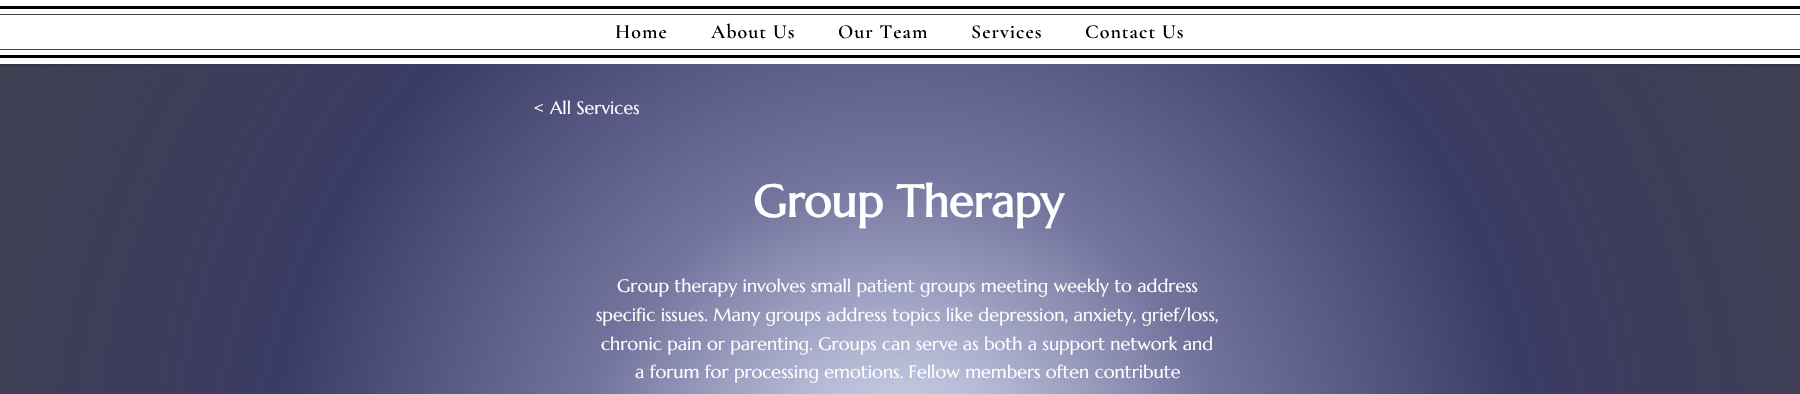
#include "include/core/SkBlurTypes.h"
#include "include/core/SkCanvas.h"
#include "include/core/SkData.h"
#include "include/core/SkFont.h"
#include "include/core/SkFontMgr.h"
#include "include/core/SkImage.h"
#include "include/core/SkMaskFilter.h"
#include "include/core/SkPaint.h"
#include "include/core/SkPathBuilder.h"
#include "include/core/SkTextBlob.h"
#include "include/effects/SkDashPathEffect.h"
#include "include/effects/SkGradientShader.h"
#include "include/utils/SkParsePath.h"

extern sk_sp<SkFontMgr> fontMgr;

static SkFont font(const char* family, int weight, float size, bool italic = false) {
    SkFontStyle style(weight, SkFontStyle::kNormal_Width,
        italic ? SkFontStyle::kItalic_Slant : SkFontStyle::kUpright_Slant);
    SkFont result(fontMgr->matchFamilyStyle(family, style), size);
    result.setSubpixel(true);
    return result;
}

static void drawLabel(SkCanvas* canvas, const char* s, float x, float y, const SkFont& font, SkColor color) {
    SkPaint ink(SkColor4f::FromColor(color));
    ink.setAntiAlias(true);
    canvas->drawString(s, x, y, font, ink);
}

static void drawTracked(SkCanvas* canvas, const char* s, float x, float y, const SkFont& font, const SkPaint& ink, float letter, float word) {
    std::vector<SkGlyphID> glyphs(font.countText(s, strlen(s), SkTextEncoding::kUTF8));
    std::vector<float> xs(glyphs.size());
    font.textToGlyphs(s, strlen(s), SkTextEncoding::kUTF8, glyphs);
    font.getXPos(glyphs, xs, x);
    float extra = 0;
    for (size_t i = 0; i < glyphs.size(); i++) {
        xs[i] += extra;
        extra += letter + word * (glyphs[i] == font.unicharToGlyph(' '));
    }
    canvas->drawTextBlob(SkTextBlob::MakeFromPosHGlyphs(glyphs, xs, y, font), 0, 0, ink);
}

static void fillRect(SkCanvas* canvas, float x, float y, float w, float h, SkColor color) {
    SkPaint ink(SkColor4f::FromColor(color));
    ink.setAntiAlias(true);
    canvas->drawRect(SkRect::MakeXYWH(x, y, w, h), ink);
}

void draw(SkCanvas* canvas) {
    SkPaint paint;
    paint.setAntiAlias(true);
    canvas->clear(0xFFFFFFFF);
    canvas->save();
    canvas->clipRect(SkRect::MakeXYWH(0, 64, 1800, 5));
    paint.setColor(0xB3000000);
    paint.setMaskFilter(SkMaskFilter::MakeBlur(kNormal_SkBlurStyle, 2.5f));
    canvas->drawRect(SkRect::MakeXYWH(0, 0, 1800, 64), paint);
    paint.setMaskFilter(nullptr);
    canvas->restore();
    fillRect(canvas, 0, 6, 1800, 3, 0xFF000000);
    fillRect(canvas, 0, 55, 1800, 3, 0xFF000000);
    fillRect(canvas, 0, 14, 1800, 1, 0xFF404040);
    fillRect(canvas, 0, 49, 1800, 1, 0xFF404040);
    SkFont font1 = font("Cormorant Garamond", 600, 20);
    paint.setColor(0xFF000000);
    drawTracked(canvas, "Home", 615, 38, font1, paint, 1, 0);
    drawTracked(canvas, "About Us", 711, 38, font1, paint, 1, 0);
    drawTracked(canvas, "Our Team", 838, 38, font1, paint, 1, 0);
    drawTracked(canvas, "Services", 971, 38, font1, paint, 1, 0);
    drawTracked(canvas, "Contact Us", 1085, 38, font1, paint, 1, 0);
    {
        const SkColor colors[] = {0xFFE4EBFC, 0xFF74759E, 0xFF3B3C65, 0xDB212136};
        const float stops[] = {0, 0.32f, 0.63f, 1};
        paint.setShader(SkGradientShader::MakeRadial({900, 493}, 997, colors, stops, 4, SkTileMode::kClamp));
        paint.setAlpha(255);
    }
    canvas->drawRect(SkRect::MakeXYWH(0, 64, 1800, 330), paint);
    SkFont font2 = font("Marcellus", 400, 18);
    drawLabel(canvas, "< All Services", 533, 114, font2, 0xFFFFFFFF);
    SkFont font3 = font("Marcellus", 700, 45);
    drawLabel(canvas, "Group Therapy", 753, 217, font3, 0xFFFFFFFF);
    drawLabel(canvas, "Group therapy involves small patient groups meeting weekly to address", 617, 292, font2, 0xFFFFFFFF);
    drawLabel(canvas, "specific issues. Many groups address topics like depression, anxiety, grief/loss,", 596, 321, font2, 0xFFFFFFFF);
    drawLabel(canvas, "chronic pain or parenting. Groups can serve as both a support network and", 601, 350, font2, 0xFFFFFFFF);
    drawLabel(canvas, "a forum for processing emotions. Fellow members often contribute", 635, 378, font2, 0xFFFFFFFF);
}
